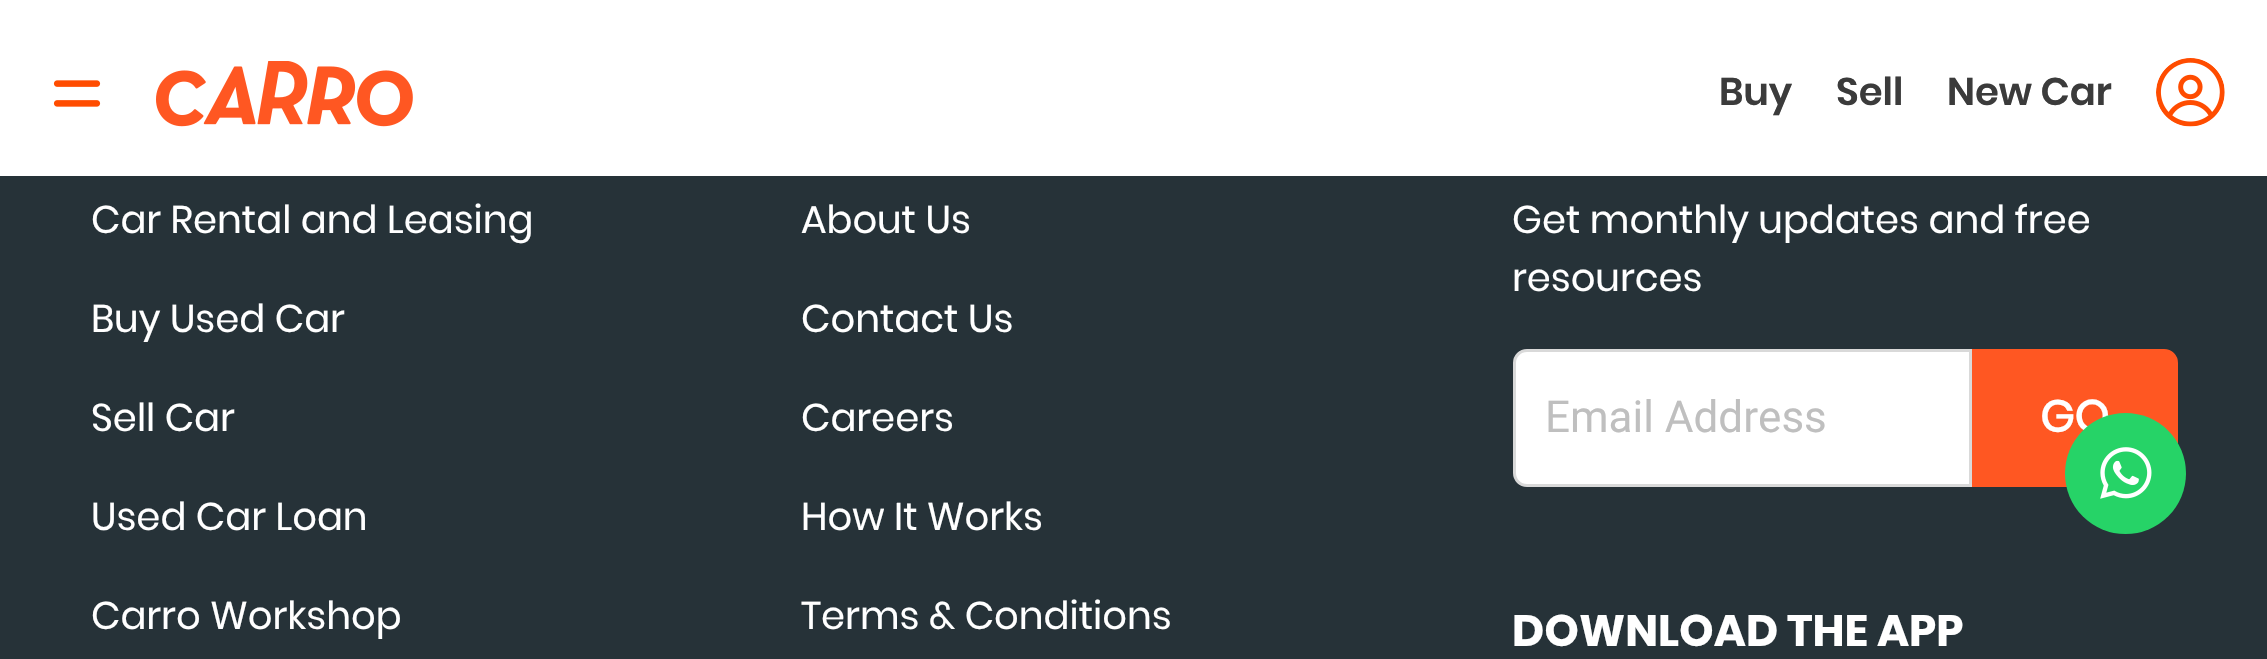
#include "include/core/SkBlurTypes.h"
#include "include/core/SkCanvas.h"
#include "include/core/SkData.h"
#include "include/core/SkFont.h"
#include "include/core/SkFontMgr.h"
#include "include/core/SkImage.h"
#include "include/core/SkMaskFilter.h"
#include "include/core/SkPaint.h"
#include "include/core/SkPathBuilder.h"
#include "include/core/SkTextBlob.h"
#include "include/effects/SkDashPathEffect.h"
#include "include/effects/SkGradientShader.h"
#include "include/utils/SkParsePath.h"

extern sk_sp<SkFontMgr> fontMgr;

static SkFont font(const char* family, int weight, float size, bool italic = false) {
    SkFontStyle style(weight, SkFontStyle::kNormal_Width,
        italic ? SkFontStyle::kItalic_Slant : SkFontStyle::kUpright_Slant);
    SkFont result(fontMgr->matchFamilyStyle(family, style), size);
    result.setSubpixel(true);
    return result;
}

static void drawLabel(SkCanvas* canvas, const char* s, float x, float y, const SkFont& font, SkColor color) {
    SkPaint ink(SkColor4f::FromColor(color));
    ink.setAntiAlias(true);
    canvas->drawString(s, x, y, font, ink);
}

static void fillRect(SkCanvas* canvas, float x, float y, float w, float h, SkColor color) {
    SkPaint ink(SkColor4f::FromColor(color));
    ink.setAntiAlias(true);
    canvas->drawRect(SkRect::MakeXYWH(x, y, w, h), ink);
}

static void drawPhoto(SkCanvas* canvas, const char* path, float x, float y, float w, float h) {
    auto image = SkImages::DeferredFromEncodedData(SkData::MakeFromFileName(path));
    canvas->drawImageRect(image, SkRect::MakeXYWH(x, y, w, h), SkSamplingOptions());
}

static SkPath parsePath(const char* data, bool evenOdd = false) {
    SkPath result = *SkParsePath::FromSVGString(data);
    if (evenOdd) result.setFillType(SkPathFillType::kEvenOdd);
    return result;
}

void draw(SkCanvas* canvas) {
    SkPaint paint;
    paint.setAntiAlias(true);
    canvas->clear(0xFF263238);
    fillRect(canvas, 0, 0, 2267, 176, 0xFFFFFFFF);
    drawPhoto(canvas, "assets/img1.png", 53, 80, 48, 27);
    drawPhoto(canvas, "assets/img2.png", 156, 61, 257, 66);
    SkFont font1 = font("Poppins", 600, 38.5f);
    drawLabel(canvas, "Buy", 1719, 105, font1, 0xFF3B3B3B);
    drawLabel(canvas, "Sell", 1836, 105, font1, 0xFF3B3B3B);
    drawLabel(canvas, "New Car", 1947, 105, font1, 0xFF3B3B3B);
    drawPhoto(canvas, "assets/img3.png", 2156, 58, 69, 69);
    SkFont font2 = font("Poppins", 400, 38.5f);
    drawLabel(canvas, "Car Rental and Leasing", 91, 233, font2, 0xFFFFFFFF);
    drawLabel(canvas, "Buy Used Car", 91, 332, font2, 0xFFFFFFFF);
    drawLabel(canvas, "Sell Car", 91, 431, font2, 0xFFFFFFFF);
    drawLabel(canvas, "Used Car Loan", 91, 530, font2, 0xFFFFFFFF);
    drawLabel(canvas, "Carro Workshop", 91, 629, font2, 0xFFFFFFFF);
    drawLabel(canvas, "About Us", 801, 233, font2, 0xFFFFFFFF);
    drawLabel(canvas, "Contact Us", 801, 332, font2, 0xFFFFFFFF);
    drawLabel(canvas, "Careers", 801, 431, font2, 0xFFFFFFFF);
    drawLabel(canvas, "How It Works", 801, 530, font2, 0xFFFFFFFF);
    drawLabel(canvas, "Terms & Conditions", 801, 629, font2, 0xFFFFFFFF);
    drawLabel(canvas, "Get monthly updates and free", 1512, 233, font2, 0xFFFFFFFF);
    drawLabel(canvas, "resources", 1512, 291, font2, 0xFFFFFFFF);
    paint.setColor(0xFFFFFFFF);
    canvas->drawPath(parsePath("M1527 350.5H1970.5V485.5H1527C1520 485.5 1514.5 480 1514.5 473V363C1514.5 356 1520 350.5 1527 350.5Z"), paint);
    paint.setStroke(true);
    paint.setStrokeWidth(3);
    paint.setColor(0xFFD9D9D9);
    canvas->drawPath(parsePath("M1527 350.5H1970.5V485.5H1527C1520 485.5 1514.5 480 1514.5 473V363C1514.5 356 1520 350.5 1527 350.5Z"), paint);
    SkFont font3 = font("Roboto", 400, 44);
    drawLabel(canvas, "Email Address", 1545, 432, font3, 0xFFBFBFBF);
    paint.setStroke(false);
    paint.setColor(0xFFFF5722);
    canvas->drawPath(parsePath("M1973.5 350.5H2164C2171 350.5 2176.5 356 2176.5 363V473C2176.5 480 2171 485.5 2164 485.5H1973.5Z"), paint);
    paint.setStroke(true);
    canvas->drawPath(parsePath("M1973.5 350.5H2164C2171 350.5 2176.5 356 2176.5 363V473C2176.5 480 2171 485.5 2164 485.5H1973.5Z"), paint);
    SkFont font4 = font("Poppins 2", 700, 44);
    drawLabel(canvas, "GO", 2040, 432, font4, 0xFFFFFFFF);
    SkFont font5 = font("Poppins", 700, 44);
    drawLabel(canvas, "DOWNLOAD THE APP", 1512, 646, font5, 0xFFFFFFFF);
    paint.setStroke(false);
    paint.setColor(0xFF26D367);
    canvas->drawCircle(2125.5f, 473.5f, 60.5f, paint);
    drawPhoto(canvas, "assets/img4.png", 2100, 447, 52, 52);
}
